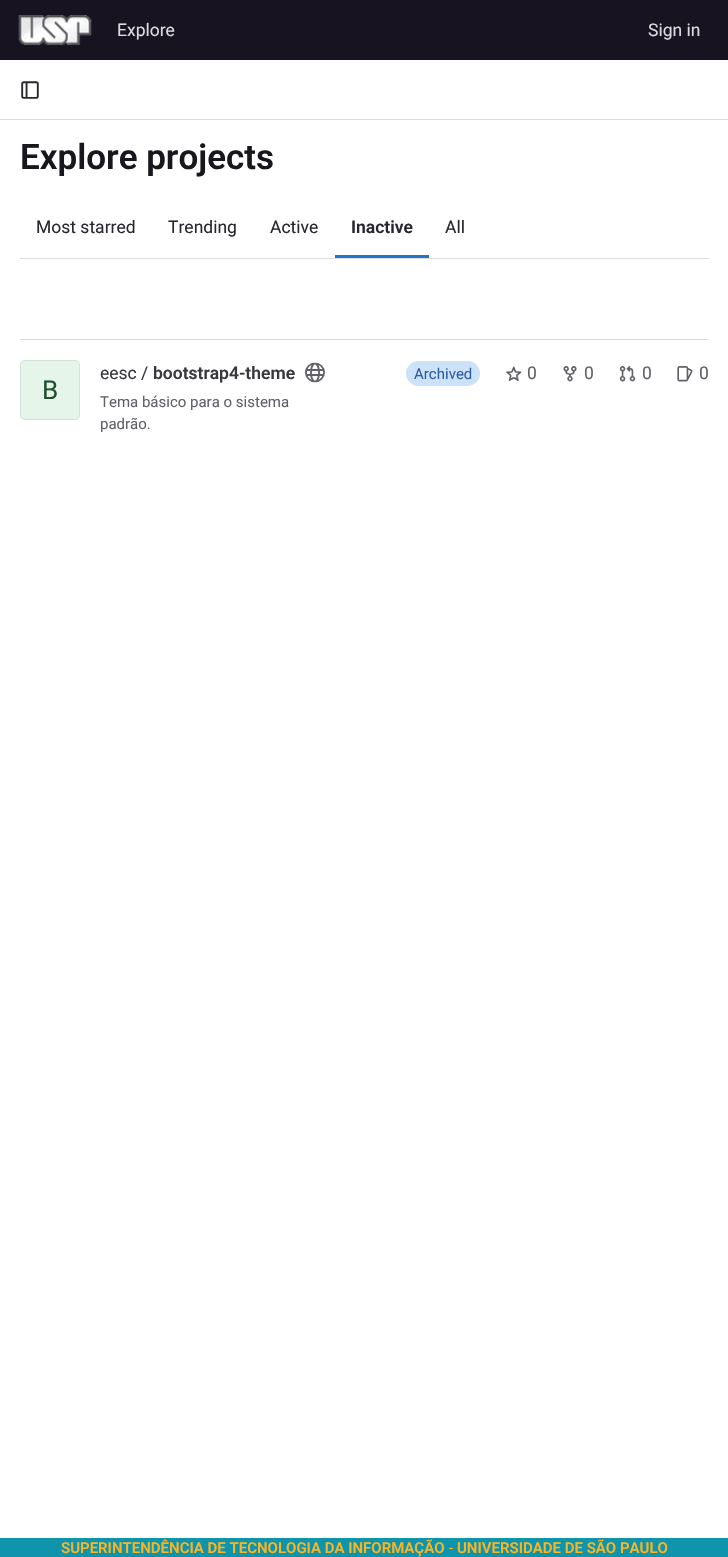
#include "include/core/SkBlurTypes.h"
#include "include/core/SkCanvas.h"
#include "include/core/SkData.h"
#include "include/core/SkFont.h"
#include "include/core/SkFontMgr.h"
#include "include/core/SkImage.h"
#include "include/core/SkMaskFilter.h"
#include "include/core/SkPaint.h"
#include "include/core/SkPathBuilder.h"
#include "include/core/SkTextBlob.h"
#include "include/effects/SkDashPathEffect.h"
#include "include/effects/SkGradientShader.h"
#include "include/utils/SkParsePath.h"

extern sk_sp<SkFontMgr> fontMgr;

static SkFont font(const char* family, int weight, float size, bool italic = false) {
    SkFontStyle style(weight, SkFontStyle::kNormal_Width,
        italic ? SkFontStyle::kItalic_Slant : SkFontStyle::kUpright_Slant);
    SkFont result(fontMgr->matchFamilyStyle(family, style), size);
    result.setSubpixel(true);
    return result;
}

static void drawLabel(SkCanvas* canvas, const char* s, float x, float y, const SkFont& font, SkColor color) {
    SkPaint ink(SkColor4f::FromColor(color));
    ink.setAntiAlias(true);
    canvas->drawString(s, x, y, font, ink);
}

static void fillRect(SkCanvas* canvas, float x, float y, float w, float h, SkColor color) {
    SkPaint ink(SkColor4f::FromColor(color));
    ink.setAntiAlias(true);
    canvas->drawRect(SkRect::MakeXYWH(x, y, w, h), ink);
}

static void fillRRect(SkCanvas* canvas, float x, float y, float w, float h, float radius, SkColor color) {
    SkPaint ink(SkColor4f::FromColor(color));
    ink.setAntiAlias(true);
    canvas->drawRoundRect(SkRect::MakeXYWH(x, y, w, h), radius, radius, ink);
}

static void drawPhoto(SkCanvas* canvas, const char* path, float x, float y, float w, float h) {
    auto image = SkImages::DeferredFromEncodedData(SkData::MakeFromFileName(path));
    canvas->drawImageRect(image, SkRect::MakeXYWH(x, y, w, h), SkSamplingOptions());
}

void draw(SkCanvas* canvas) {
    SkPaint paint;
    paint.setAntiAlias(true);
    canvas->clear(0xFFFFFFFF);
    fillRect(canvas, 0, 0, 728, 60, 0xFF171321);
    drawPhoto(canvas, "assets/img1.png", 18, 15, 74, 30);
    SkFont font1 = font("Roboto", 400, 17.5f);
    drawLabel(canvas, "Explore", 117, 36, font1, 0xFFDCDCDE);
    drawLabel(canvas, "Sign in", 648, 36, font1, 0xFFDCDCDE);
    fillRect(canvas, 0, 119, 728, 1, 0xFFDCDCDE);
    drawPhoto(canvas, "assets/img2.png", 21, 81, 18, 18);
    SkFont font2 = font("Roboto", 600, 35);
    drawLabel(canvas, "Explore projects", 20, 169, font2, 0xFF18171D);
    drawLabel(canvas, "Most starred", 36, 233, font1, 0xFF28272D);
    drawLabel(canvas, "Trending", 168, 233, font1, 0xFF28272D);
    drawLabel(canvas, "Active", 270, 233, font1, 0xFF28272D);
    SkFont font3 = font("Roboto", 600, 17.5f);
    drawLabel(canvas, "Inactive", 351, 233, font3, 0xFF28272D);
    fillRect(canvas, 335, 255, 94, 3, 0xFF1F75CB);
    drawLabel(canvas, "All", 445, 233, font1, 0xFF28272D);
    fillRect(canvas, 20, 258, 689, 1, 0xFFDCDCDE);
    fillRect(canvas, 20, 339, 689, 1, 0xFFDCDCDE);
    drawLabel(canvas, "eesc /", 100, 379, font1, 0xFF3A383F);
    drawLabel(canvas, "bootstrap4-theme", 153, 379, font3, 0xFF3A383F);
    drawPhoto(canvas, "assets/img3.png", 305, 362, 20, 21);
    SkFont font4 = font("Roboto", 400, 15);
    drawLabel(canvas, "Tema básico para o sistema", 100, 407, font4, 0xFF626168);
    drawLabel(canvas, "padrão.", 100, 429, font4, 0xFF626168);
    fillRRect(canvas, 406, 361, 74, 25, 12.5f, 0xFFCBE2F9);
    drawLabel(canvas, "Archived", 414, 379, font4, 0xFF2F5CA0);
    drawPhoto(canvas, "assets/img4.png", 506, 366, 16, 15);
    drawLabel(canvas, "0", 527, 379, font1, 0xFF626168);
    drawPhoto(canvas, "assets/img5.png", 563, 366, 14, 16);
    drawLabel(canvas, "0", 584, 379, font1, 0xFF626168);
    drawPhoto(canvas, "assets/img6.png", 619, 366, 17, 16);
    drawLabel(canvas, "0", 642, 379, font1, 0xFF626168);
    drawPhoto(canvas, "assets/img7.png", 677, 366, 16, 16);
    drawLabel(canvas, "0", 699, 379, font1, 0xFF626168);
    fillRRect(canvas, 20, 360, 60, 60, 5, 0xFFE5F5EA);
    paint.setStroke(true);
    paint.setStrokeWidth(1);
    paint.setColor(0x14050506);
    canvas->drawRoundRect(SkRect::MakeXYWH(20.5f, 360.5f, 59, 59), 4.5f, 4.5f, paint);
    SkFont font5 = font("Roboto", 400, 26);
    drawLabel(canvas, "B", 42, 399, font5, 0xFF225131);
    fillRect(canvas, 0, 1538, 728, 19, 0xFF1094AB);
    SkFont font6 = font("Roboto", 600, 15);
    drawLabel(canvas, "SUPERINTENDÊNCIA DE TECNOLOGIA DA INFORMAÇÃO", 61, 1553, font6, 0xFFFCB421);
    drawLabel(canvas, "-", 449, 1553, font4, 0xFFFCB421);
    drawLabel(canvas, "UNIVERSIDADE DE SÃO PAULO", 457, 1553, font6, 0xFFFCB421);
}
